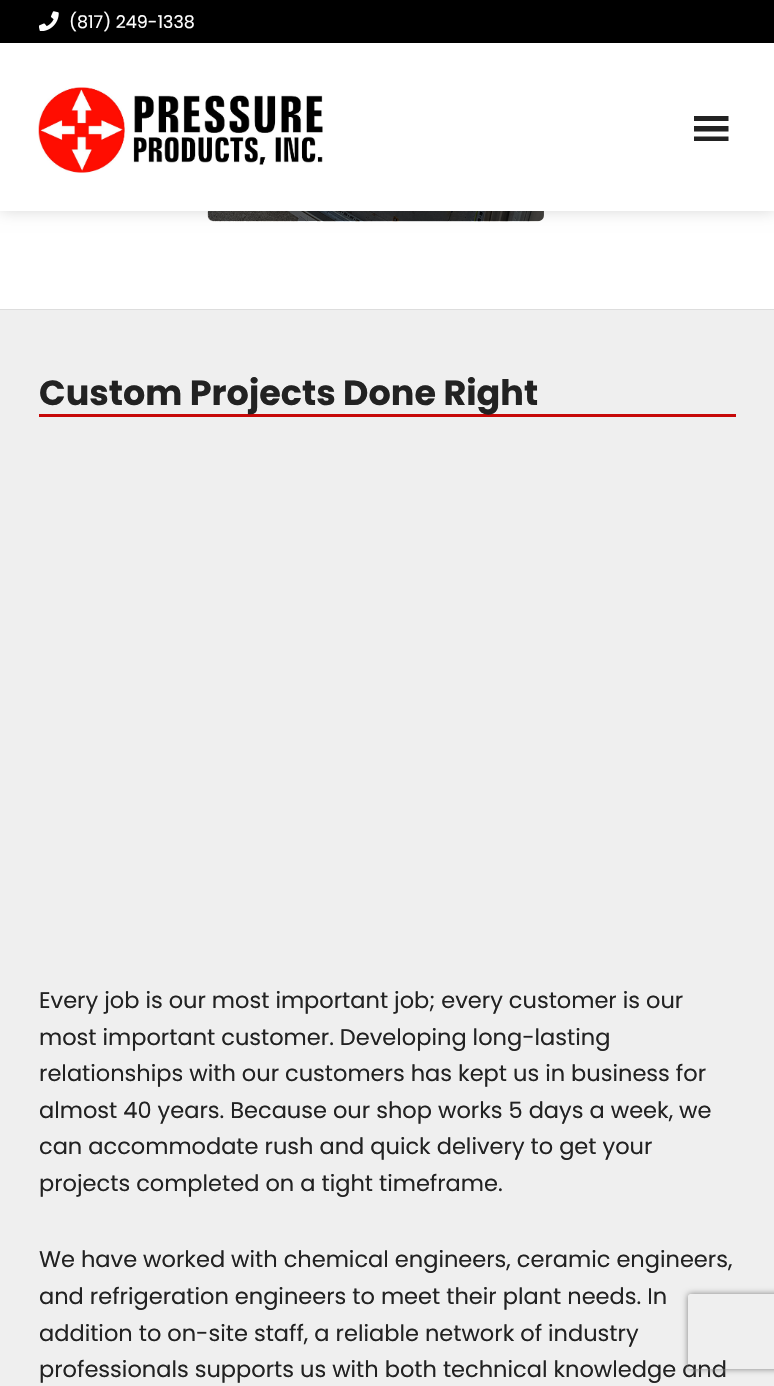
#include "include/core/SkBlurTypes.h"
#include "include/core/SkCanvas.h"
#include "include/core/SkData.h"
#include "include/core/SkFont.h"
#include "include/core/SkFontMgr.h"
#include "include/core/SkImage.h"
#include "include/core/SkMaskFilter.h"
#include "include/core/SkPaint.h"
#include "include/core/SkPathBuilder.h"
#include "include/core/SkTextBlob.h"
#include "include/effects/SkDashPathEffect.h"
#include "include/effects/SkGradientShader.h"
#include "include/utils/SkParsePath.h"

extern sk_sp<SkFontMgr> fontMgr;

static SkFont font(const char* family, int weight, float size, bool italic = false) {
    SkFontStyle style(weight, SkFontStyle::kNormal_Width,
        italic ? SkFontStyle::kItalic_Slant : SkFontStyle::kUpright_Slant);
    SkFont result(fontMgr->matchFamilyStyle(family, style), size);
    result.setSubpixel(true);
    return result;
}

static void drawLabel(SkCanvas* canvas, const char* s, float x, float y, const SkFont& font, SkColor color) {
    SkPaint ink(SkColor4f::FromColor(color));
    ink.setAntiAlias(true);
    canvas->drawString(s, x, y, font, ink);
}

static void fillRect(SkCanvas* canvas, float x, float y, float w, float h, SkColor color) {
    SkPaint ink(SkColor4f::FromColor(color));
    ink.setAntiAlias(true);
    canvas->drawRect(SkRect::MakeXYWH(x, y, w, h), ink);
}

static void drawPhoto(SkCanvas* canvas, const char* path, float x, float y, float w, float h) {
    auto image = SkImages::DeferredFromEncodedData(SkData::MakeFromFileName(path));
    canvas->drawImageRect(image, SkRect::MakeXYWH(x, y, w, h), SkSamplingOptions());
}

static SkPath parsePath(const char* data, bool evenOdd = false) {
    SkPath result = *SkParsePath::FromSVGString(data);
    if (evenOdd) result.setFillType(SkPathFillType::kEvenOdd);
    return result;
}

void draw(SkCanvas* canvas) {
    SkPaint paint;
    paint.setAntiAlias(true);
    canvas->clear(0xFFFFFFFF);
    drawPhoto(canvas, "assets/img3.png", 207, 211, 337, 11);
    {
        const SkColor colors[] = {0xA6000000, 0x00000000};
        const float stops[] = {0, 1};
        const SkPoint ends[] = {{376, 221}, {376, -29}};
        paint.setShader(SkGradientShader::MakeLinear(ends, colors, stops, 2, SkTileMode::kClamp));
        paint.setAlpha(255);
    }
    canvas->drawPath(parsePath("M208-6H544V215C544 218.5 541.5 221 538 221H214C210.5 221 208 218.5 208 215Z"), paint);
    fillRect(canvas, 0, 0, 774, 43, 0xFF000000);
    drawPhoto(canvas, "assets/img1.png", 39, 11, 20, 20);
    SkFont font1 = font("Poppins", 400, 17.5f);
    drawLabel(canvas, "(817) 249-1338", 69, 28, font1, 0xFFFFFFFF);
    paint.setShader(nullptr);
    paint.setColor(0x26000000);
    paint.setMaskFilter(SkMaskFilter::MakeBlur(kNormal_SkBlurStyle, 7.5f));
    canvas->drawRect(SkRect::MakeXYWH(0, 43, 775, 168), paint);
    paint.setMaskFilter(nullptr);
    fillRect(canvas, 0, 43, 774, 168, 0xFFFFFFFF);
    drawPhoto(canvas, "assets/img2.png", 38, 87, 285, 86);
    paint.setColor(0xFF222222);
    canvas->drawPath(parsePath("M694 141H728.5V136.5H694ZM694 116V121H728.5V116ZM694 131.5H728.5V126H694Z"), paint);
    fillRect(canvas, 0, 310, 774, 1076, 0xFFEFEFEF);
    fillRect(canvas, 0, 309, 774, 1, 0xFFDDDDDD);
    fillRect(canvas, 39, 414, 697, 3, 0xFFC70808);
    SkFont font2 = font("Poppins", 700, 35);
    drawLabel(canvas, "Custom Projects Done Right", 39, 405, font2, 0xFF222222);
    SkFont font3 = font("Poppins", 400, 22.5f);
    drawLabel(canvas, "Every job is our most important job; every customer is our", 39, 1008, font3, 0xFF222222);
    drawLabel(canvas, "most important customer. Developing long-lasting", 39, 1045, font3, 0xFF222222);
    drawLabel(canvas, "relationships with our customers has kept us in business for", 39, 1081, font3, 0xFF222222);
    drawLabel(canvas, "almost 40 years. Because our shop works 5 days a week, we", 39, 1118, font3, 0xFF222222);
    drawLabel(canvas, "can accommodate rush and quick delivery to get your", 39, 1154, font3, 0xFF222222);
    drawLabel(canvas, "projects completed on a tight timeframe.", 39, 1191, font3, 0xFF222222);
    drawLabel(canvas, "We have worked with chemical engineers, ceramic engineers,", 39, 1267, font3, 0xFF222222);
    drawLabel(canvas, "and refrigeration engineers to meet their plant needs. In", 39, 1304, font3, 0xFF222222);
    drawLabel(canvas, "addition to on-site staff, a reliable network of industry", 39, 1341, font3, 0xFF222222);
    drawLabel(canvas, "professionals supports us with both technical knowledge and", 39, 1377, font3, 0xFF222222);
    canvas->save();
    canvas->clipPath(parsePath("M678 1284H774V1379H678ZM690.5 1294H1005.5C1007 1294 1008 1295 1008 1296.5V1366.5C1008 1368 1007 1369 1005.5 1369H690.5C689 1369 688 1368 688 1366.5V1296.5C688 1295 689 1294 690.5 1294Z", true), true);
    paint.setColor(0xFF808080);
    paint.setMaskFilter(SkMaskFilter::MakeBlur(kNormal_SkBlurStyle, 3));
    canvas->drawRoundRect(SkRect::MakeXYWH(688, 1294, 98, 75), 2.5f, 2.5f, paint);
    paint.setMaskFilter(nullptr);
    canvas->restore();
}
